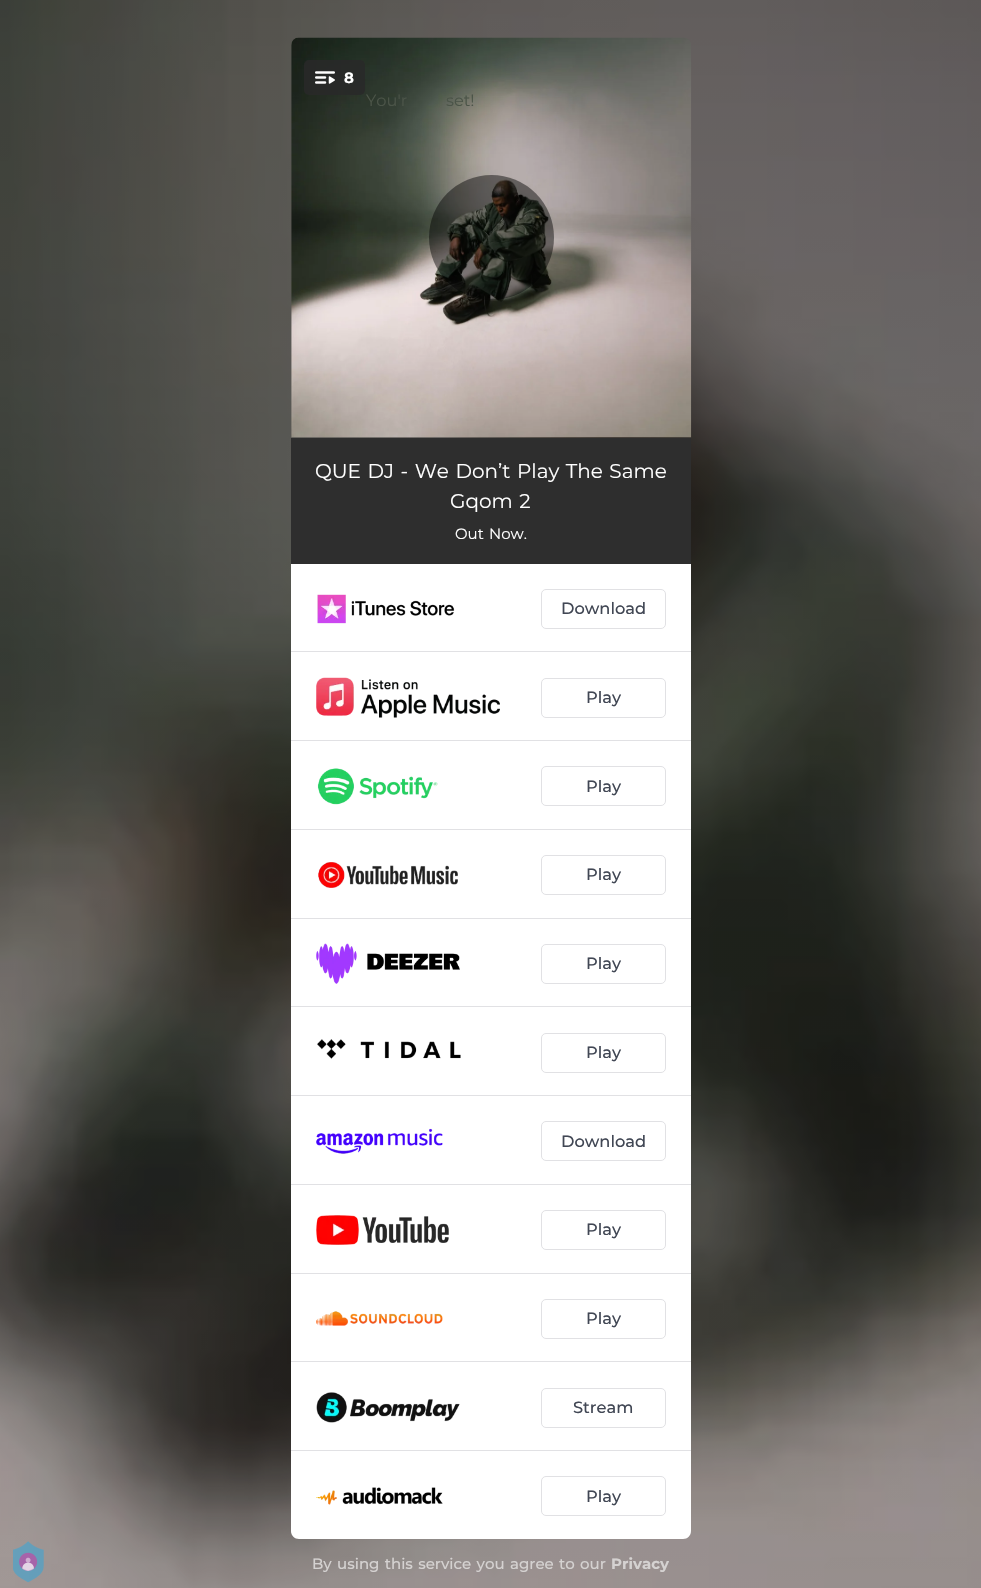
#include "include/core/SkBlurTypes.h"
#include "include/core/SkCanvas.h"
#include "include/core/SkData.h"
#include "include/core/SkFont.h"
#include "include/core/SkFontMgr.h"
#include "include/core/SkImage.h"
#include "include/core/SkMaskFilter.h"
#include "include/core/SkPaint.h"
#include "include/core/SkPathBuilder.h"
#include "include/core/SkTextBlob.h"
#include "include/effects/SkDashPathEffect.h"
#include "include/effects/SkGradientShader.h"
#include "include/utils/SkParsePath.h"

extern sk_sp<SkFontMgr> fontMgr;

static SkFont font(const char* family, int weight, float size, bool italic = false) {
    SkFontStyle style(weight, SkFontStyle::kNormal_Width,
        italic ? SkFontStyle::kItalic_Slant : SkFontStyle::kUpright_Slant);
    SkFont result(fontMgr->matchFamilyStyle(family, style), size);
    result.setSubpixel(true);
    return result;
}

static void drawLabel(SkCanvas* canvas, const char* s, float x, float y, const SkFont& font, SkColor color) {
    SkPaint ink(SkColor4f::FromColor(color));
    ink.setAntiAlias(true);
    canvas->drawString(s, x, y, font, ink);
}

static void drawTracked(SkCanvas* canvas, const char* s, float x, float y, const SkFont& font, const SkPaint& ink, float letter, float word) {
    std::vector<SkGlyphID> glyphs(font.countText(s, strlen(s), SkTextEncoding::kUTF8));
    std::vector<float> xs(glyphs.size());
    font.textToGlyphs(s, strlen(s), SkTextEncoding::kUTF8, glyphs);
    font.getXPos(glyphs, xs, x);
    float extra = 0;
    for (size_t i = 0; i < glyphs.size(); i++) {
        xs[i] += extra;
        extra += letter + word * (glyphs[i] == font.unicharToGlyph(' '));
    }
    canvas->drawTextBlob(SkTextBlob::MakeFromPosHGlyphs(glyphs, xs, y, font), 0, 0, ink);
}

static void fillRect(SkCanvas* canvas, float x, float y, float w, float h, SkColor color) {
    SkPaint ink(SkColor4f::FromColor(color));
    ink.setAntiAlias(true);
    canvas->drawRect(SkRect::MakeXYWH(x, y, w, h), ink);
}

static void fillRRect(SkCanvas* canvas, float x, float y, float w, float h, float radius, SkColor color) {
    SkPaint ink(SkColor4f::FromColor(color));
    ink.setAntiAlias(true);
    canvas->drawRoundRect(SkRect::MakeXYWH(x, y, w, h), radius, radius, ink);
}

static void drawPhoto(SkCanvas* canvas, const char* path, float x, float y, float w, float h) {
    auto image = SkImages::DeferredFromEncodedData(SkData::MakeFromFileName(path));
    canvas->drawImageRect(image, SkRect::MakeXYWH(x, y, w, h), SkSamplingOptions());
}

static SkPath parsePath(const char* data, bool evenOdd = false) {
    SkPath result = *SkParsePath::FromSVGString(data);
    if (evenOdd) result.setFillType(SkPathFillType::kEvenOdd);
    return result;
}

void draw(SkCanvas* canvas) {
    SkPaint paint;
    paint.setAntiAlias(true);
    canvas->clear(0xFFFFFFFF);
    drawPhoto(canvas, "assets/img2.png", 0, 0, 981, 1588);
    drawPhoto(canvas, "assets/img1.png", 13, 1541, 31, 42);
    drawPhoto(canvas, "assets/img3.png", 291, 37, 401, 401);
    fillRRect(canvas, 304, 60, 61, 35, 5, 0xD9282828);
    drawPhoto(canvas, "assets/img4.png", 315, 71, 20, 13);
    SkFont font1 = font("Montserrat", 700, 15);
    drawLabel(canvas, "8", 344, 83, font1, 0xFFFFFFFF);
    paint.setColor(0x73000000);
    canvas->drawCircle(491.5f, 237.5f, 62.5f, paint);
    SkFont font2 = font("Montserrat", 400, 16.25f);
    paint.setColor(0xFF4B5448);
    drawTracked(canvas, "You'r", 366, 106, font2, paint, 0, 1.25f);
    drawTracked(canvas, "set!", 446, 106, font2, paint, 0, 1.25f);
    fillRect(canvas, 291, 438, 400, 126, 0xFF2E2E2E);
    SkFont font3 = font("Montserrat", 400, 20);
    paint.setColor(0xFFFFFFFF);
    drawTracked(canvas, "QUE DJ - We Don’t Play The Same", 315, 478, font3, paint, 0, 1.25f);
    drawTracked(canvas, "Gqom 2", 450, 508, font3, paint, 0, 1.25f);
    SkFont font4 = font("Montserrat", 400, 15);
    drawTracked(canvas, "Out Now.", 455, 539, font4, paint, 0, 1.25f);
    canvas->drawPath(parsePath("M291 564H691V1531C691 1535.5 687.5 1539 683 1539H299C294.5 1539 291 1535.5 291 1531Z"), paint);
    fillRect(canvas, 291, 651, 400, 1, 0xFFE1E1E4);
    drawPhoto(canvas, "assets/img5.png", 317, 594, 138, 30);
    paint.setStroke(true);
    paint.setStrokeWidth(1);
    paint.setColor(0xFFE1E1E4);
    canvas->drawRoundRect(SkRect::MakeXYWH(541.5f, 589.5f, 124, 39), 4.5f, 4.5f, paint);
    SkFont font5 = font("Montserrat", 500, 16.25f);
    drawLabel(canvas, "Download", 561, 614, font5, 0xFF414754);
    fillRect(canvas, 291, 740, 400, 1, 0xFFE1E1E4);
    drawPhoto(canvas, "assets/img6.png", 316, 677, 184, 41);
    canvas->drawRoundRect(SkRect::MakeXYWH(541.5f, 678.5f, 124, 39), 4.5f, 4.5f, paint);
    drawLabel(canvas, "Play", 586, 703, font5, 0xFF414754);
    fillRect(canvas, 291, 829, 400, 1, 0xFFE1E1E4);
    drawPhoto(canvas, "assets/img7.png", 317, 768, 121, 37);
    canvas->drawRoundRect(SkRect::MakeXYWH(541.5f, 766.5f, 124, 39), 4.5f, 4.5f, paint);
    drawLabel(canvas, "Play", 586, 792, font5, 0xFF414754);
    fillRect(canvas, 291, 918, 400, 1, 0xFFE1E1E4);
    drawPhoto(canvas, "assets/img8.png", 318, 862, 140, 26);
    canvas->drawRoundRect(SkRect::MakeXYWH(541.5f, 855.5f, 124, 39), 4.5f, 4.5f, paint);
    drawLabel(canvas, "Play", 586, 880, font5, 0xFF414754);
    fillRect(canvas, 291, 1006, 400, 1, 0xFFE1E1E4);
    drawPhoto(canvas, "assets/img9.png", 316, 943, 144, 41);
    canvas->drawRoundRect(SkRect::MakeXYWH(541.5f, 944.5f, 124, 39), 4.5f, 4.5f, paint);
    drawLabel(canvas, "Play", 586, 969, font5, 0xFF414754);
    fillRect(canvas, 291, 1095, 400, 1, 0xFFE1E1E4);
    drawPhoto(canvas, "assets/img10.png", 317, 1039, 144, 20);
    canvas->drawRoundRect(SkRect::MakeXYWH(541.5f, 1033.5f, 124, 39), 4.5f, 4.5f, paint);
    drawLabel(canvas, "Play", 586, 1058, font5, 0xFF414754);
    fillRect(canvas, 291, 1184, 400, 1, 0xFFE1E1E4);
    drawPhoto(canvas, "assets/img11.png", 316, 1128, 127, 26);
    canvas->drawRoundRect(SkRect::MakeXYWH(541.5f, 1121.5f, 124, 39), 4.5f, 4.5f, paint);
    drawLabel(canvas, "Download", 561, 1147, font5, 0xFF414754);
    fillRect(canvas, 291, 1273, 400, 1, 0xFFE1E1E4);
    drawPhoto(canvas, "assets/img12.png", 316, 1215, 133, 30);
    canvas->drawRoundRect(SkRect::MakeXYWH(541.5f, 1210.5f, 124, 39), 4.5f, 4.5f, paint);
    drawLabel(canvas, "Play", 586, 1235, font5, 0xFF414754);
    fillRect(canvas, 291, 1361, 400, 1, 0xFFE1E1E4);
    drawPhoto(canvas, "assets/img13.png", 316, 1311, 127, 15);
    canvas->drawRoundRect(SkRect::MakeXYWH(541.5f, 1299.5f, 124, 39), 4.5f, 4.5f, paint);
    drawLabel(canvas, "Play", 586, 1324, font5, 0xFF414754);
    fillRect(canvas, 291, 1450, 400, 1, 0xFFE1E1E4);
    drawPhoto(canvas, "assets/img14.png", 316, 1392, 144, 31);
    canvas->drawRoundRect(SkRect::MakeXYWH(541.5f, 1388.5f, 124, 39), 4.5f, 4.5f, paint);
    drawLabel(canvas, "Stream", 573, 1413, font5, 0xFF414754);
    drawPhoto(canvas, "assets/img15.png", 316, 1487, 127, 18);
    canvas->drawRoundRect(SkRect::MakeXYWH(541.5f, 1476.5f, 124, 39), 4.5f, 4.5f, paint);
    drawLabel(canvas, "Play", 586, 1502, font5, 0xFF414754);
    SkFont font6 = font("Montserrat", 500, 15);
    paint.setStroke(false);
    paint.setColor(0xFFD5D2D1);
    drawTracked(canvas, "By using this service you agree to our", 312, 1569, font6, paint, 0, 1.25f);
    drawLabel(canvas, "Privacy", 611, 1569, font1, 0xFFD5D2D1);
}
